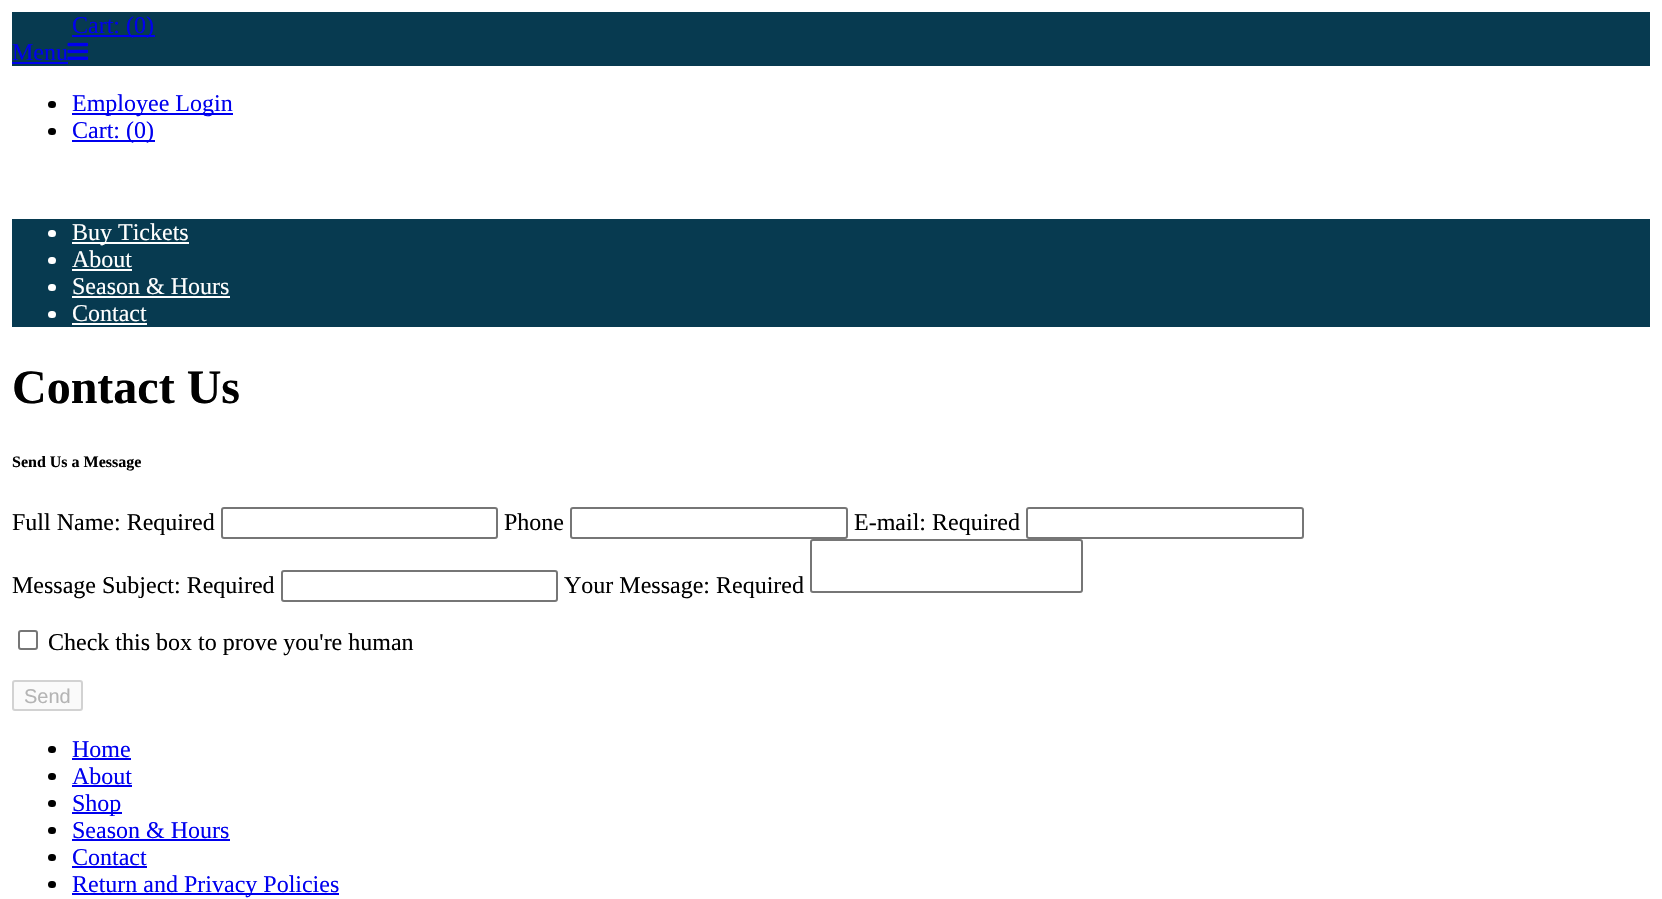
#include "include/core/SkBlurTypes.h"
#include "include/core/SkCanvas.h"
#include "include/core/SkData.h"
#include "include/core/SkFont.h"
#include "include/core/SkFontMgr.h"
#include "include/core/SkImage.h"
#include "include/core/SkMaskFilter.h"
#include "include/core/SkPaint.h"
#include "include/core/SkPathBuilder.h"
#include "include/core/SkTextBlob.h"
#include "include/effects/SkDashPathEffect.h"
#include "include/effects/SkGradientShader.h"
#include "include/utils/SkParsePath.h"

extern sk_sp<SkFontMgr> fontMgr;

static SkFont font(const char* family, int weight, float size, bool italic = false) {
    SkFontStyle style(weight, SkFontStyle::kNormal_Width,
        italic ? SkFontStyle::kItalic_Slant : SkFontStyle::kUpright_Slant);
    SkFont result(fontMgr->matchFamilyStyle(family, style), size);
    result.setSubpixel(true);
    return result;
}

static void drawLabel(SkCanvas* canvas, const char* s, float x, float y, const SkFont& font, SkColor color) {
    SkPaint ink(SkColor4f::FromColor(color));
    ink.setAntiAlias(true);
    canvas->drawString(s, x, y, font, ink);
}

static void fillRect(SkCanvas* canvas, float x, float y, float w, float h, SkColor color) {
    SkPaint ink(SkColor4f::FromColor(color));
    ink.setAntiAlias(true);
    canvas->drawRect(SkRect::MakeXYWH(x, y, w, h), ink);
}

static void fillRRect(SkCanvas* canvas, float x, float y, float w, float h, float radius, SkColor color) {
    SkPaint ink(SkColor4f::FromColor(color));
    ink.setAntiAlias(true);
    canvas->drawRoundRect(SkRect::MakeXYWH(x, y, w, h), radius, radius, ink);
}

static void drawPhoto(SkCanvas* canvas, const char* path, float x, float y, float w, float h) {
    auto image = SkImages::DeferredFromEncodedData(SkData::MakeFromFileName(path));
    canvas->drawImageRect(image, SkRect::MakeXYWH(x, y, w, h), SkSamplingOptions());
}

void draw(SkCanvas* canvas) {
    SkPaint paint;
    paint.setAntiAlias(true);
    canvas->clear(0xFFFFFFFF);
    fillRect(canvas, 12, 12, 1638, 54, 0xFF073A50);
    fillRect(canvas, 72, 35, 83, 2, 0xFF0000EE);
    SkFont font1 = font("Liberation Serif", 400, 24);
    drawLabel(canvas, "Cart: (0)", 72, 33, font1, 0xFF0000EE);
    drawLabel(canvas, "Menu", 12, 60, font1, 0xFF0000EE);
    fillRect(canvas, 12, 62, 56, 2, 0xFF0000EE);
    drawPhoto(canvas, "assets/img1.png", 67, 42, 22, 18);
    fillRRect(canvas, 48, 101, 8, 7, 3.5f, 0xFF000000);
    fillRect(canvas, 72, 113, 161, 2, 0xFF0000EE);
    drawLabel(canvas, "Employee Login", 72, 111, font1, 0xFF0000EE);
    fillRRect(canvas, 48, 128, 8, 7, 3.5f, 0xFF000000);
    fillRect(canvas, 72, 140, 83, 2, 0xFF0000EE);
    drawLabel(canvas, "Cart: (0)", 72, 138, font1, 0xFF0000EE);
    fillRect(canvas, 12, 219, 1638, 108, 0xFF073A50);
    fillRRect(canvas, 48, 230, 8, 7, 3.5f, 0xFFFFFFFF);
    fillRect(canvas, 72, 242, 117, 2, 0xFFFFFFFF);
    drawLabel(canvas, "Buy Tickets", 72, 240, font1, 0xFFFFFFFF);
    fillRRect(canvas, 48, 257, 8, 7, 3.5f, 0xFFFFFFFF);
    drawLabel(canvas, "About", 72, 267, font1, 0xFFFFFFFF);
    fillRect(canvas, 72, 269, 60, 2, 0xFFFFFFFF);
    fillRRect(canvas, 48, 284, 8, 7, 3.5f, 0xFFFFFFFF);
    drawLabel(canvas, "Season & Hours", 72, 294, font1, 0xFFFFFFFF);
    fillRect(canvas, 72, 296, 158, 2, 0xFFFFFFFF);
    fillRRect(canvas, 48, 311, 8, 7, 3.5f, 0xFFFFFFFF);
    drawLabel(canvas, "Contact", 72, 321, font1, 0xFFFFFFFF);
    fillRect(canvas, 72, 323, 75, 2, 0xFFFFFFFF);
    SkFont font2 = font("Liberation Serif", 700, 48);
    drawLabel(canvas, "Contact Us", 12, 403, font2, 0xFF000000);
    SkFont font3 = font("Liberation Serif", 700, 16);
    drawLabel(canvas, "Send Us a Message", 12, 467, font3, 0xFF000000);
    drawLabel(canvas, "Full Name: Required", 12, 530, font1, 0xFF000000);
    paint.setStroke(true);
    paint.setStrokeWidth(2);
    paint.setColor(0xFF767676);
    canvas->drawRoundRect(SkRect::MakeXYWH(222, 508, 275, 30), 2, 2, paint);
    drawLabel(canvas, "Phone", 504, 530, font1, 0xFF000000);
    canvas->drawRoundRect(SkRect::MakeXYWH(571, 508, 276, 30), 2, 2, paint);
    drawLabel(canvas, "E-mail: Required", 854, 530, font1, 0xFF000000);
    canvas->drawRoundRect(SkRect::MakeXYWH(1027, 508, 276, 30), 2, 2, paint);
    drawLabel(canvas, "Message Subject: Required", 12, 593, font1, 0xFF000000);
    canvas->drawRoundRect(SkRect::MakeXYWH(282, 571, 275, 30), 2, 2, paint);
    drawLabel(canvas, "Your Message: Required", 564, 593, font1, 0xFF000000);
    canvas->drawRoundRect(SkRect::MakeXYWH(811, 540, 271, 52), 2, 2, paint);
    canvas->drawRoundRect(SkRect::MakeXYWH(19, 631, 18, 18), 2, 2, paint);
    drawLabel(canvas, "Check this box to prove you're human", 48, 650, font1, 0xFF000000);
    paint.setStroke(false);
    paint.setColor(0xFFFAFAFA);
    canvas->drawRoundRect(SkRect::MakeXYWH(13, 681, 69, 29), 2, 2, paint);
    paint.setStroke(true);
    paint.setColor(0xFFD2D2D2);
    canvas->drawRoundRect(SkRect::MakeXYWH(13, 681, 69, 29), 2, 2, paint);
    SkFont font4 = font("Liberation Sans", 400, 20);
    drawLabel(canvas, "Send", 24, 703, font4, 0xFFB4B4B4);
    fillRRect(canvas, 48, 746, 8, 7, 3.5f, 0xFF000000);
    drawLabel(canvas, "Home", 72, 757, font1, 0xFF0000EE);
    fillRect(canvas, 72, 758, 59, 2, 0xFF0000EE);
    fillRRect(canvas, 48, 773, 8, 7, 3.5f, 0xFF000000);
    drawLabel(canvas, "About", 72, 784, font1, 0xFF0000EE);
    fillRect(canvas, 72, 785, 60, 2, 0xFF0000EE);
    fillRRect(canvas, 48, 800, 8, 7, 3.5f, 0xFF000000);
    fillRect(canvas, 72, 812, 50, 2, 0xFF0000EE);
    drawLabel(canvas, "Shop", 72, 811, font1, 0xFF0000EE);
    fillRRect(canvas, 48, 827, 8, 7, 3.5f, 0xFF000000);
    drawLabel(canvas, "Season & Hours", 72, 838, font1, 0xFF0000EE);
    fillRect(canvas, 72, 839, 158, 2, 0xFF0000EE);
    fillRRect(canvas, 48, 854, 8, 7, 3.5f, 0xFF000000);
    drawLabel(canvas, "Contact", 72, 865, font1, 0xFF0000EE);
    fillRect(canvas, 72, 866, 75, 2, 0xFF0000EE);
    fillRRect(canvas, 48, 881, 8, 7, 3.5f, 0xFF000000);
    fillRect(canvas, 72, 893, 267, 2, 0xFF0000EE);
    drawLabel(canvas, "Return and Privacy Policies", 72, 892, font1, 0xFF0000EE);
}
